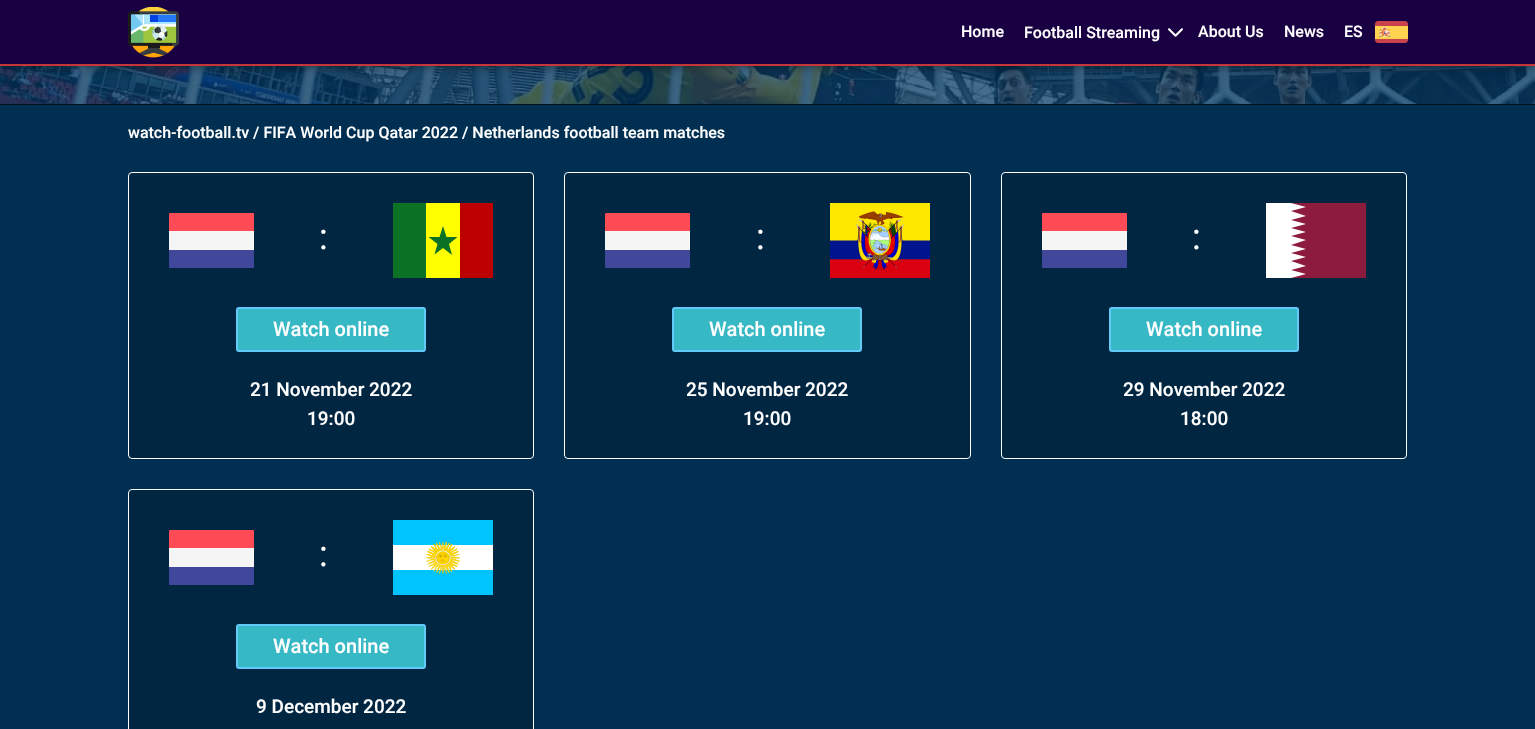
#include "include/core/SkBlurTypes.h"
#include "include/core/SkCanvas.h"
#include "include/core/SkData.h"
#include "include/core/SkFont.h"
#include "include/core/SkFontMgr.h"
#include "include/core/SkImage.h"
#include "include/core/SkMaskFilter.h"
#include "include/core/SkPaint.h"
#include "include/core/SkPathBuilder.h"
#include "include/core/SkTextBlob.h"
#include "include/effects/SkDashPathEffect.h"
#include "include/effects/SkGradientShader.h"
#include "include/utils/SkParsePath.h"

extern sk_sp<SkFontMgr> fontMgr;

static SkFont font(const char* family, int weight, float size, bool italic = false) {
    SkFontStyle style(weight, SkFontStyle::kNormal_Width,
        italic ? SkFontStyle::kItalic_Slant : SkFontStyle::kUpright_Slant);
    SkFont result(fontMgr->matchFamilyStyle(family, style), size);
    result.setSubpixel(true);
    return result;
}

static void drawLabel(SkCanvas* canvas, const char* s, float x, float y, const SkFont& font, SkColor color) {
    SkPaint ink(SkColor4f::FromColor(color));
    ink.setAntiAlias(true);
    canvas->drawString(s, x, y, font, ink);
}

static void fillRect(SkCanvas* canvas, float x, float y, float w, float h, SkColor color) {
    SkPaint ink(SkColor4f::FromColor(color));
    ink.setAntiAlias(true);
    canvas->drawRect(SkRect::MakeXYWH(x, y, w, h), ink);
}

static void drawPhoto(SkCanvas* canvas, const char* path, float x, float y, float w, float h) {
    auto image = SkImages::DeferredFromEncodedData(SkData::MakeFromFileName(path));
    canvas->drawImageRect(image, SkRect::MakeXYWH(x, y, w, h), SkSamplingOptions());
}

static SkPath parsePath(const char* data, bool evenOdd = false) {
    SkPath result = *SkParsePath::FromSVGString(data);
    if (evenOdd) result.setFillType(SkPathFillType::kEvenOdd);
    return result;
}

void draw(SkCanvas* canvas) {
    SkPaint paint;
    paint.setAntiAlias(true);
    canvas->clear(0xFF002F52);
    drawPhoto(canvas, "assets/img4.png", 0, 66, 1535, 38);
    paint.setColor(0x80000000);
    paint.setMaskFilter(SkMaskFilter::MakeBlur(kNormal_SkBlurStyle, 5));
    canvas->drawRect(SkRect::MakeXYWH(0, 0, 1535, 66), paint);
    paint.setMaskFilter(nullptr);
    fillRect(canvas, 0, 0, 1535, 64, 0xFF190042);
    fillRect(canvas, 0, 64, 1535, 2, 0xFFC53737);
    drawPhoto(canvas, "assets/img1.png", 128, 7, 51, 51);
    SkFont font1 = font("Roboto", 500, 16);
    drawLabel(canvas, "Home", 961, 37, font1, 0xFFFFFFFF);
    drawLabel(canvas, "Football Streaming", 1024, 38, font1, 0xFFFFFFFF);
    drawPhoto(canvas, "assets/img2.png", 1168, 28, 15, 9);
    drawLabel(canvas, "About Us", 1198, 37, font1, 0xFFFFFFFF);
    drawLabel(canvas, "News", 1284, 37, font1, 0xFFFFFFFF);
    drawLabel(canvas, "ES", 1344, 37, font1, 0xFFFFFFFF);
    drawPhoto(canvas, "assets/img3.png", 1375, 21, 33, 22);
    fillRect(canvas, 0, 104, 1535, 1, 0xFF00121F);
    drawLabel(canvas, "watch-football.tv / FIFA World Cup Qatar 2022 / Netherlands football team matches", 128, 138, font1, 0xFFFFFFFF);
    paint.setColor(0xFF012642);
    canvas->drawRoundRect(SkRect::MakeXYWH(128.5f, 172.5f, 405, 286), 3.5f, 3.5f, paint);
    paint.setStroke(true);
    paint.setStrokeWidth(1);
    paint.setColor(0xFFFFFFFF);
    canvas->drawRoundRect(SkRect::MakeXYWH(128.5f, 172.5f, 405, 286), 3.5f, 3.5f, paint);
    paint.setStroke(false);
    paint.setColor(0xFFFF4B55);
    canvas->drawPath(parsePath("M254 231H169V214C169 213 170 213 170 213H253C253 213 254 213 254 214Z"), paint);
    paint.setColor(0xFF41479B);
    canvas->drawPath(parsePath("M253 268H170C170 268 169 268 169 267V250H254V267C254 268 253 268 253 268Z"), paint);
    fillRect(canvas, 169, 231, 85, 19, 0xFFF5F5F5);
    SkFont font2 = font("Roboto", 400, 36);
    drawLabel(canvas, ":", 319, 249, font2, 0xFFFFFFFF);
    fillRect(canvas, 393, 203, 33, 75, 0xFF0B7226);
    fillRect(canvas, 426, 203, 34, 75, 0xFFFFFF00);
    fillRect(canvas, 460, 203, 33, 75, 0xFFBC0000);
    paint.setColor(0xFF0B7226);
    canvas->drawPath(parsePath("M446.5 237H457.5L449 244L452 255L443 248L434.5 254.5L437.5 244L428.5 237H439.5L443 226Z"), paint);
    paint.setColor(0xFF37B8C5);
    canvas->drawRoundRect(SkRect::MakeXYWH(237, 308, 188, 43), 2, 2, paint);
    paint.setStroke(true);
    paint.setStrokeWidth(2);
    paint.setColor(0xFF63C9F9);
    canvas->drawRoundRect(SkRect::MakeXYWH(237, 308, 188, 43), 2, 2, paint);
    SkFont font3 = font("Roboto", 500, 20);
    drawLabel(canvas, "Watch online", 273, 336, font3, 0xFFFFFFFF);
    SkFont font4 = font("Roboto", 500, 19);
    drawLabel(canvas, "21 November 2022", 250, 396, font4, 0xFFFFFFFF);
    drawLabel(canvas, "19:00", 307, 425, font4, 0xFFFFFFFF);
    paint.setStroke(false);
    paint.setColor(0xFF012642);
    canvas->drawRoundRect(SkRect::MakeXYWH(564.5f, 172.5f, 406, 286), 3.5f, 3.5f, paint);
    paint.setStroke(true);
    paint.setStrokeWidth(1);
    paint.setColor(0xFFFFFFFF);
    canvas->drawRoundRect(SkRect::MakeXYWH(564.5f, 172.5f, 406, 286), 3.5f, 3.5f, paint);
    paint.setStroke(false);
    paint.setColor(0xFFFF4B55);
    canvas->drawPath(parsePath("M690 231H605V214C605 213 606 213 606 213H689C689 213 690 213 690 214Z"), paint);
    paint.setColor(0xFF41479B);
    canvas->drawPath(parsePath("M689 268H606C606 268 605 268 605 267V250H690V267C690 268 689 268 689 268Z"), paint);
    fillRect(canvas, 605, 231, 85, 19, 0xFFF5F5F5);
    drawLabel(canvas, ":", 756, 249, font2, 0xFFFFFFFF);
    drawPhoto(canvas, "assets/img5.png", 830, 203, 100, 75);
    paint.setColor(0xFF37B8C5);
    canvas->drawRoundRect(SkRect::MakeXYWH(673, 308, 188, 43), 2, 2, paint);
    paint.setStroke(true);
    paint.setStrokeWidth(2);
    paint.setColor(0xFF63C9F9);
    canvas->drawRoundRect(SkRect::MakeXYWH(673, 308, 188, 43), 2, 2, paint);
    drawLabel(canvas, "Watch online", 709, 336, font3, 0xFFFFFFFF);
    drawLabel(canvas, "25 November 2022", 686, 396, font4, 0xFFFFFFFF);
    drawLabel(canvas, "19:00", 743, 425, font4, 0xFFFFFFFF);
    paint.setStroke(false);
    paint.setColor(0xFF012642);
    canvas->drawRoundRect(SkRect::MakeXYWH(1001.5f, 172.5f, 405, 286), 3.5f, 3.5f, paint);
    paint.setStroke(true);
    paint.setStrokeWidth(1);
    paint.setColor(0xFFFFFFFF);
    canvas->drawRoundRect(SkRect::MakeXYWH(1001.5f, 172.5f, 405, 286), 3.5f, 3.5f, paint);
    paint.setStroke(false);
    paint.setColor(0xFFFF4B55);
    canvas->drawPath(parsePath("M1127 231H1042V214C1042 213 1043 213 1043 213H1126C1126 213 1127 213 1127 214Z"), paint);
    paint.setColor(0xFF41479B);
    canvas->drawPath(parsePath("M1126 268H1043C1043 268 1042 268 1042 267V250H1127V267C1127 268 1126 268 1126 268Z"), paint);
    fillRect(canvas, 1042, 231, 85, 19, 0xFFF5F5F5);
    drawLabel(canvas, ":", 1192, 249, font2, 0xFFFFFFFF);
    fillRect(canvas, 1291, 203, 75, 75, 0xFF8D1B3D);
    paint.setColor(0xFFFFFFFF);
    canvas->drawPath(parsePath("M1266 203V278H1291L1306 274L1291 270L1306 266L1291 261L1306 257L1291 253L1306 249L1291 245L1306 240L1291 236L1306 232L1291 228L1306 224L1291 220L1306 216L1291 211L1306 207L1291 203Z"), paint);
    paint.setColor(0xFF37B8C5);
    canvas->drawRoundRect(SkRect::MakeXYWH(1110, 308, 188, 43), 2, 2, paint);
    paint.setStroke(true);
    paint.setStrokeWidth(2);
    paint.setColor(0xFF63C9F9);
    canvas->drawRoundRect(SkRect::MakeXYWH(1110, 308, 188, 43), 2, 2, paint);
    drawLabel(canvas, "Watch online", 1146, 336, font3, 0xFFFFFFFF);
    drawLabel(canvas, "29 November 2022", 1123, 396, font4, 0xFFFFFFFF);
    drawLabel(canvas, "18:00", 1180, 425, font4, 0xFFFFFFFF);
    paint.setStroke(false);
    paint.setColor(0xFF012642);
    canvas->drawRoundRect(SkRect::MakeXYWH(128.5f, 489.5f, 405, 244), 3.5f, 3.5f, paint);
    paint.setStroke(true);
    paint.setStrokeWidth(1);
    paint.setColor(0xFFFFFFFF);
    canvas->drawRoundRect(SkRect::MakeXYWH(128.5f, 489.5f, 405, 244), 3.5f, 3.5f, paint);
    paint.setStroke(false);
    paint.setColor(0xFFFF4B55);
    canvas->drawPath(parsePath("M254 548H169V531C169 530 170 530 170 530H253C253 530 254 530 254 531Z"), paint);
    paint.setColor(0xFF41479B);
    canvas->drawPath(parsePath("M253 585H170C170 585 169 585 169 584V567H254V584C254 585 253 585 253 585Z"), paint);
    fillRect(canvas, 169, 548, 85, 19, 0xFFF5F5F5);
    drawLabel(canvas, ":", 319, 566, font2, 0xFFFFFFFF);
    drawPhoto(canvas, "assets/img6.png", 393, 520, 100, 75);
    paint.setColor(0xFF37B8C5);
    canvas->drawRoundRect(SkRect::MakeXYWH(237, 625, 188, 43), 2, 2, paint);
    paint.setStroke(true);
    paint.setStrokeWidth(2);
    paint.setColor(0xFF63C9F9);
    canvas->drawRoundRect(SkRect::MakeXYWH(237, 625, 188, 43), 2, 2, paint);
    drawLabel(canvas, "Watch online", 273, 653, font3, 0xFFFFFFFF);
    drawLabel(canvas, "9 December 2022", 256, 713, font4, 0xFFFFFFFF);
}
